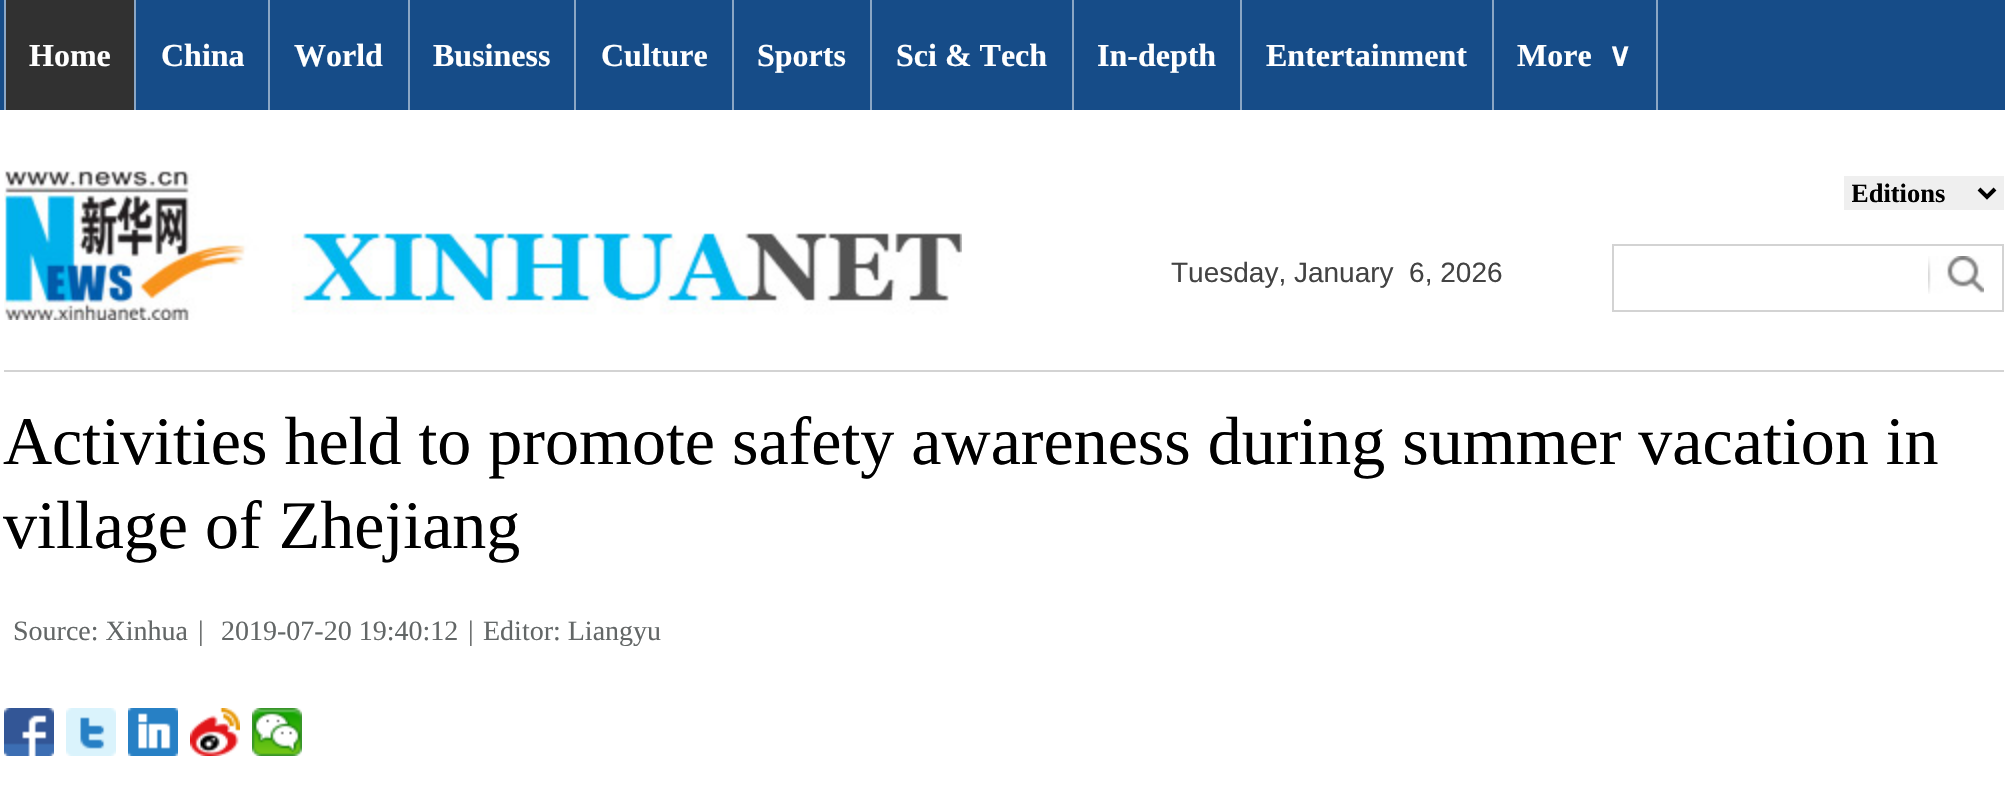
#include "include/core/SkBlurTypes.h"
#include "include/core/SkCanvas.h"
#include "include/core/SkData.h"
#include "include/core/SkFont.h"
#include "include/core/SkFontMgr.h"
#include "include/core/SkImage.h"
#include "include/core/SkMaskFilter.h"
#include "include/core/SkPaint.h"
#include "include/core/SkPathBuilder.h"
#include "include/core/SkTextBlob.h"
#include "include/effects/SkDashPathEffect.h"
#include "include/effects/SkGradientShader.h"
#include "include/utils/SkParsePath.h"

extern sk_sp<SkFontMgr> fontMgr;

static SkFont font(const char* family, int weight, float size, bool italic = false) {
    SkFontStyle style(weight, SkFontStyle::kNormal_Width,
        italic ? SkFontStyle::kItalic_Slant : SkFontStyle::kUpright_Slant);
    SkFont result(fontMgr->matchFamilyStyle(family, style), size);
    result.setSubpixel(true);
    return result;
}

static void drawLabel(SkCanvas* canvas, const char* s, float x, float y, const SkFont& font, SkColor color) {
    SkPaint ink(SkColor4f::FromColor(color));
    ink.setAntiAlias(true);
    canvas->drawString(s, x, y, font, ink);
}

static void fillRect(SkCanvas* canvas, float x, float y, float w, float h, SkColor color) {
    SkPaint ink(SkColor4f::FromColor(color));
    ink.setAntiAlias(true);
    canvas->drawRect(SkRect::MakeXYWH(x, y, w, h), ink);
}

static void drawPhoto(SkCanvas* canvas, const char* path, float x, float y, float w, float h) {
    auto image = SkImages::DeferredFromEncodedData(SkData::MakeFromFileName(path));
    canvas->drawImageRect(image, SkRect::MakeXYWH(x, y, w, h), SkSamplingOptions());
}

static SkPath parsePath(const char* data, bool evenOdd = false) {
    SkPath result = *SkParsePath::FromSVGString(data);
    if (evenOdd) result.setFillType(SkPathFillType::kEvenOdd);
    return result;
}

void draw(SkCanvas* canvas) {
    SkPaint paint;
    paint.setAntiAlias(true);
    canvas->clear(0xFFFFFFFF);
    fillRect(canvas, 0, 0, 2005, 110, 0xFF164C88);
    fillRect(canvas, 6, 0, 128, 110, 0xFF313131);
    fillRect(canvas, 4, 0, 2, 110, 0xFF8BA6C4);
    SkFont font1 = font("Liberation Serif", 700, 32);
    drawLabel(canvas, "Home", 29, 66, font1, 0xFFFFFFFF);
    fillRect(canvas, 134, 0, 2, 110, 0xFF8BA6C4);
    drawLabel(canvas, "China", 161, 66, font1, 0xFFFFFFFF);
    fillRect(canvas, 268, 0, 2, 110, 0xFF8BA6C4);
    drawLabel(canvas, "World", 294, 66, font1, 0xFFFFFFFF);
    fillRect(canvas, 408, 0, 2, 110, 0xFF8BA6C4);
    drawLabel(canvas, "Business", 433, 66, font1, 0xFFFFFFFF);
    fillRect(canvas, 574, 0, 2, 110, 0xFF8BA6C4);
    drawLabel(canvas, "Culture", 601, 66, font1, 0xFFFFFFFF);
    fillRect(canvas, 732, 0, 2, 110, 0xFF8BA6C4);
    drawLabel(canvas, "Sports", 757, 66, font1, 0xFFFFFFFF);
    fillRect(canvas, 870, 0, 2, 110, 0xFF8BA6C4);
    drawLabel(canvas, "Sci & Tech", 896, 66, font1, 0xFFFFFFFF);
    fillRect(canvas, 1072, 0, 2, 110, 0xFF8BA6C4);
    drawLabel(canvas, "In-depth", 1097, 66, font1, 0xFFFFFFFF);
    fillRect(canvas, 1240, 0, 2, 110, 0xFF8BA6C4);
    drawLabel(canvas, "Entertainment", 1266, 66, font1, 0xFFFFFFFF);
    fillRect(canvas, 1656, 0, 2, 110, 0xFF8BA6C4);
    fillRect(canvas, 1492, 0, 2, 110, 0xFF8BA6C4);
    drawLabel(canvas, "More", 1517, 66, font1, 0xFFFFFFFF);
    SkFont font2 = font("DejaVu Sans", 700, 32);
    drawLabel(canvas, "∨", 1608, 66, font2, 0xFFFFFFFF);
    fillRect(canvas, 4, 370, 2000, 2, 0xFFD3D3D3);
    drawPhoto(canvas, "assets/img1.png", 4, 170, 958, 150);
    fillRect(canvas, 1844, 176, 160, 34, 0xFFEFEFEF);
    paint.setStroke(true);
    paint.setStrokeWidth(4);
    paint.setColor(0xFF000000);
    canvas->drawPath(parsePath("M1979 189L1987 197L1995 189"), paint);
    canvas->save();
    canvas->clipRect(SkRect::MakeXYWH(1852, 176, 120, 34));
    SkFont font3 = font("Liberation Serif", 700, 26.5f);
    drawLabel(canvas, "Editions", 1851, 202, font3, 0xFF000000);
    canvas->restore();
    fillRect(canvas, 1612, 244, 392, 2, 0xFFD3D3D3);
    fillRect(canvas, 2002, 244, 2, 68, 0xFFD3D3D3);
    fillRect(canvas, 1612, 310, 392, 2, 0xFFD3D3D3);
    drawPhoto(canvas, "assets/img2.png", 1928, 256, 56, 38);
    fillRect(canvas, 1612, 244, 2, 68, 0xFFD3D3D3);
    SkFont font4 = font("Liberation Sans", 400, 28);
    drawLabel(canvas, "Tuesday, January  6, 2026", 1171, 282, font4, 0xFF434343);
    SkFont font5 = font("Liberation Serif", 400, 68);
    drawLabel(canvas, "Activities held to promote safety awareness during summer vacation in", 3, 464, font5, 0xFF000000);
    drawLabel(canvas, "village of Zhejiang", 3, 548, font5, 0xFF000000);
    SkFont font6 = font("Liberation Serif", 400, 28);
    drawLabel(canvas, "Source: Xinhua", 13, 640, font6, 0xFF636767);
    drawLabel(canvas, "|", 198, 640, font6, 0xFF636767);
    drawLabel(canvas, "2019-07-20 19:40:12", 221, 640, font6, 0xFF636767);
    drawLabel(canvas, "|", 468, 640, font6, 0xFF636767);
    drawLabel(canvas, "Editor: Liangyu", 483, 640, font6, 0xFF636767);
    drawPhoto(canvas, "assets/img3.png", 4, 708, 50, 48);
    drawPhoto(canvas, "assets/img4.png", 66, 708, 50, 48);
    drawPhoto(canvas, "assets/img5.png", 128, 708, 50, 48);
    drawPhoto(canvas, "assets/img6.png", 190, 708, 50, 48);
    drawPhoto(canvas, "assets/img7.png", 252, 708, 50, 48);
}
